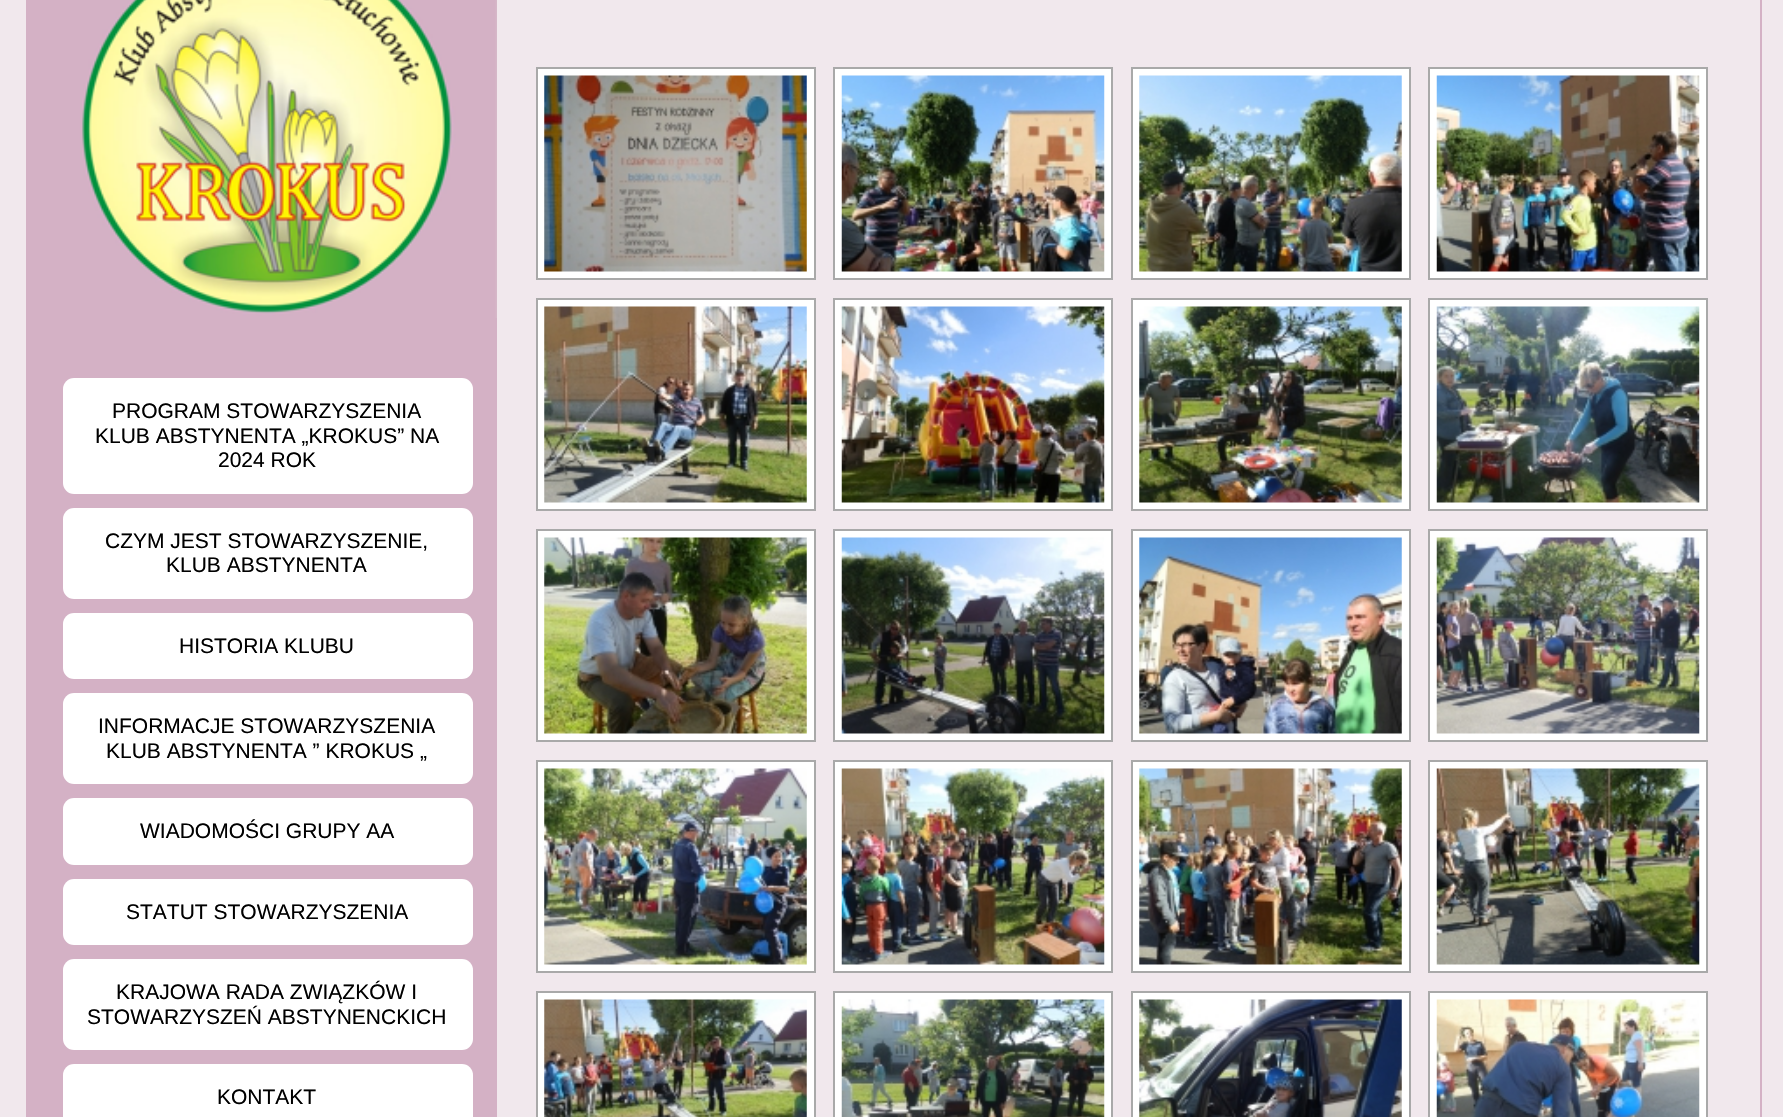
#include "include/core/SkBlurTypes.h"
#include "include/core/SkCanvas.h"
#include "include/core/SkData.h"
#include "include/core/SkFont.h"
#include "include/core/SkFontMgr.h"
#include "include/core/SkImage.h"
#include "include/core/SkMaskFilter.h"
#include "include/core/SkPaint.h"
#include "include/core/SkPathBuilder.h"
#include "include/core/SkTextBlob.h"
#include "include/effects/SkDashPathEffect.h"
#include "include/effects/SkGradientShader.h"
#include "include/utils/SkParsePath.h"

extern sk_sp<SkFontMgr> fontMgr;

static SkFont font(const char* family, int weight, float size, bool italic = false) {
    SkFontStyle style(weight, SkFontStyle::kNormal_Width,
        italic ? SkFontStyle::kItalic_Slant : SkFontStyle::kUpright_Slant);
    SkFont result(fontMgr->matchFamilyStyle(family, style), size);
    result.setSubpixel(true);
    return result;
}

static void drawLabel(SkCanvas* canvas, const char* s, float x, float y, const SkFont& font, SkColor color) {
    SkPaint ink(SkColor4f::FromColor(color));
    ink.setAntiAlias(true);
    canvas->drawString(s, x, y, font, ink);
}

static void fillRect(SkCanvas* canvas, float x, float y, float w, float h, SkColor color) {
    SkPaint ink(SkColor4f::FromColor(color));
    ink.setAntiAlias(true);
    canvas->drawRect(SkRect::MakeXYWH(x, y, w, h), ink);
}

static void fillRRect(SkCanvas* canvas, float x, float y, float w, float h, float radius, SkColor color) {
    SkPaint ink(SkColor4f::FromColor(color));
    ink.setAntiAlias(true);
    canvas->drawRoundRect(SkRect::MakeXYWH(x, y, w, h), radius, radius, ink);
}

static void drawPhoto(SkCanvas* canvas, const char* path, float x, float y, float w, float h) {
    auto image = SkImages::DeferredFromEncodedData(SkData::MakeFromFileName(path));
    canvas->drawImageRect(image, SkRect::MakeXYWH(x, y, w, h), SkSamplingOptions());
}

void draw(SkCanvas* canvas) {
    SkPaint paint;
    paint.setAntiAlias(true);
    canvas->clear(0xFFF1E8ED);
    paint.setStroke(true);
    paint.setStrokeWidth(2);
    paint.setColor(0xFFD4B1C5);
    canvas->drawRect(SkRect::MakeXYWH(27, -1, 1734, 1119), paint);
    fillRect(canvas, 28, 0, 469, 1117, 0xFFD4B1C5);
    drawPhoto(canvas, "assets/img1.png", 82, 0, 415, 318);
    fillRRect(canvas, 63, 378, 410, 116, 11, 0xFFFFFFFF);
    SkFont font1 = font("Liberation Sans", 400, 21);
    drawLabel(canvas, "PROGRAM STOWARZYSZENIA", 112, 418, font1, 0xFF000000);
    drawLabel(canvas, "KLUB ABSTYNENTA „KROKUS” NA", 95, 443, font1, 0xFF000000);
    drawLabel(canvas, "2024 ROK", 218, 467, font1, 0xFF000000);
    fillRRect(canvas, 63, 508, 410, 91, 11, 0xFFFFFFFF);
    drawLabel(canvas, "CZYM JEST STOWARZYSZENIE,", 105, 548, font1, 0xFF000000);
    drawLabel(canvas, "KLUB ABSTYNENTA", 166, 572, font1, 0xFF000000);
    fillRRect(canvas, 63, 613, 410, 66, 11, 0xFFFFFFFF);
    drawLabel(canvas, "HISTORIA KLUBU", 179, 653, font1, 0xFF000000);
    fillRRect(canvas, 63, 693, 410, 91, 11, 0xFFFFFFFF);
    drawLabel(canvas, "INFORMACJE STOWARZYSZENIA", 98, 733, font1, 0xFF000000);
    drawLabel(canvas, "KLUB ABSTYNENTA ” KROKUS „", 106, 758, font1, 0xFF000000);
    fillRRect(canvas, 63, 798, 410, 67, 11, 0xFFFFFFFF);
    drawLabel(canvas, "WIADOMOŚCI GRUPY AA", 140, 838, font1, 0xFF000000);
    fillRRect(canvas, 63, 879, 410, 66, 11, 0xFFFFFFFF);
    drawLabel(canvas, "STATUT STOWARZYSZENIA", 126, 919, font1, 0xFF000000);
    fillRRect(canvas, 63, 959, 410, 91, 11, 0xFFFFFFFF);
    drawLabel(canvas, "KRAJOWA RADA ZWIĄZKÓW I", 116, 999, font1, 0xFF000000);
    drawLabel(canvas, "STOWARZYSZEŃ ABSTYNENCKICH", 87, 1024, font1, 0xFF000000);
    fillRRect(canvas, 63, 1064, 410, 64, 11, 0xFFFFFFFF);
    drawLabel(canvas, "KONTAKT", 217, 1104, font1, 0xFF000000);
    paint.setStroke(false);
    paint.setColor(0xFFFFFFFF);
    canvas->drawRect(SkRect::MakeXYWH(537, 68, 278, 211), paint);
    paint.setStroke(true);
    paint.setColor(0xFFA9A9A9);
    canvas->drawRect(SkRect::MakeXYWH(537, 68, 278, 211), paint);
    drawPhoto(canvas, "assets/img2.png", 544, 75, 263, 197);
    paint.setStroke(false);
    paint.setColor(0xFFFFFFFF);
    canvas->drawRect(SkRect::MakeXYWH(834, 68, 278, 211), paint);
    paint.setStroke(true);
    paint.setColor(0xFFA9A9A9);
    canvas->drawRect(SkRect::MakeXYWH(834, 68, 278, 211), paint);
    drawPhoto(canvas, "assets/img3.png", 841, 75, 264, 197);
    paint.setStroke(false);
    paint.setColor(0xFFFFFFFF);
    canvas->drawRect(SkRect::MakeXYWH(1132, 68, 278, 211), paint);
    paint.setStroke(true);
    paint.setColor(0xFFA9A9A9);
    canvas->drawRect(SkRect::MakeXYWH(1132, 68, 278, 211), paint);
    drawPhoto(canvas, "assets/img4.png", 1139, 75, 263, 197);
    paint.setStroke(false);
    paint.setColor(0xFFFFFFFF);
    canvas->drawRect(SkRect::MakeXYWH(1429, 68, 278, 211), paint);
    paint.setStroke(true);
    paint.setColor(0xFFA9A9A9);
    canvas->drawRect(SkRect::MakeXYWH(1429, 68, 278, 211), paint);
    drawPhoto(canvas, "assets/img5.png", 1436, 75, 264, 197);
    paint.setStroke(false);
    paint.setColor(0xFFFFFFFF);
    canvas->drawRect(SkRect::MakeXYWH(537, 299, 278, 211), paint);
    paint.setStroke(true);
    paint.setColor(0xFFA9A9A9);
    canvas->drawRect(SkRect::MakeXYWH(537, 299, 278, 211), paint);
    drawPhoto(canvas, "assets/img6.png", 544, 306, 263, 197);
    paint.setStroke(false);
    paint.setColor(0xFFFFFFFF);
    canvas->drawRect(SkRect::MakeXYWH(834, 299, 278, 211), paint);
    paint.setStroke(true);
    paint.setColor(0xFFA9A9A9);
    canvas->drawRect(SkRect::MakeXYWH(834, 299, 278, 211), paint);
    drawPhoto(canvas, "assets/img7.png", 841, 306, 264, 197);
    paint.setStroke(false);
    paint.setColor(0xFFFFFFFF);
    canvas->drawRect(SkRect::MakeXYWH(1132, 299, 278, 211), paint);
    paint.setStroke(true);
    paint.setColor(0xFFA9A9A9);
    canvas->drawRect(SkRect::MakeXYWH(1132, 299, 278, 211), paint);
    drawPhoto(canvas, "assets/img8.png", 1139, 306, 263, 197);
    paint.setStroke(false);
    paint.setColor(0xFFFFFFFF);
    canvas->drawRect(SkRect::MakeXYWH(1429, 299, 278, 211), paint);
    paint.setStroke(true);
    paint.setColor(0xFFA9A9A9);
    canvas->drawRect(SkRect::MakeXYWH(1429, 299, 278, 211), paint);
    drawPhoto(canvas, "assets/img9.png", 1436, 306, 264, 197);
    paint.setStroke(false);
    paint.setColor(0xFFFFFFFF);
    canvas->drawRect(SkRect::MakeXYWH(537, 530, 278, 211), paint);
    paint.setStroke(true);
    paint.setColor(0xFFA9A9A9);
    canvas->drawRect(SkRect::MakeXYWH(537, 530, 278, 211), paint);
    drawPhoto(canvas, "assets/img10.png", 544, 537, 263, 197);
    paint.setStroke(false);
    paint.setColor(0xFFFFFFFF);
    canvas->drawRect(SkRect::MakeXYWH(834, 530, 278, 211), paint);
    paint.setStroke(true);
    paint.setColor(0xFFA9A9A9);
    canvas->drawRect(SkRect::MakeXYWH(834, 530, 278, 211), paint);
    drawPhoto(canvas, "assets/img11.png", 841, 537, 264, 197);
    paint.setStroke(false);
    paint.setColor(0xFFFFFFFF);
    canvas->drawRect(SkRect::MakeXYWH(1132, 530, 278, 211), paint);
    paint.setStroke(true);
    paint.setColor(0xFFA9A9A9);
    canvas->drawRect(SkRect::MakeXYWH(1132, 530, 278, 211), paint);
    drawPhoto(canvas, "assets/img12.png", 1139, 537, 263, 197);
    paint.setStroke(false);
    paint.setColor(0xFFFFFFFF);
    canvas->drawRect(SkRect::MakeXYWH(1429, 530, 278, 211), paint);
    paint.setStroke(true);
    paint.setColor(0xFFA9A9A9);
    canvas->drawRect(SkRect::MakeXYWH(1429, 530, 278, 211), paint);
    drawPhoto(canvas, "assets/img13.png", 1436, 537, 264, 197);
    paint.setStroke(false);
    paint.setColor(0xFFFFFFFF);
    canvas->drawRect(SkRect::MakeXYWH(537, 761, 278, 211), paint);
    paint.setStroke(true);
    paint.setColor(0xFFA9A9A9);
    canvas->drawRect(SkRect::MakeXYWH(537, 761, 278, 211), paint);
    drawPhoto(canvas, "assets/img14.png", 544, 768, 263, 197);
    paint.setStroke(false);
    paint.setColor(0xFFFFFFFF);
    canvas->drawRect(SkRect::MakeXYWH(834, 761, 278, 211), paint);
    paint.setStroke(true);
    paint.setColor(0xFFA9A9A9);
    canvas->drawRect(SkRect::MakeXYWH(834, 761, 278, 211), paint);
    drawPhoto(canvas, "assets/img15.png", 841, 768, 264, 197);
    paint.setStroke(false);
    paint.setColor(0xFFFFFFFF);
    canvas->drawRect(SkRect::MakeXYWH(1132, 761, 278, 211), paint);
    paint.setStroke(true);
    paint.setColor(0xFFA9A9A9);
    canvas->drawRect(SkRect::MakeXYWH(1132, 761, 278, 211), paint);
    drawPhoto(canvas, "assets/img16.png", 1139, 768, 263, 197);
    paint.setStroke(false);
    paint.setColor(0xFFFFFFFF);
    canvas->drawRect(SkRect::MakeXYWH(1429, 761, 278, 211), paint);
    paint.setStroke(true);
    paint.setColor(0xFFA9A9A9);
    canvas->drawRect(SkRect::MakeXYWH(1429, 761, 278, 211), paint);
    drawPhoto(canvas, "assets/img17.png", 1436, 768, 264, 197);
    paint.setStroke(false);
    paint.setColor(0xFFFFFFFF);
    canvas->drawRect(SkRect::MakeXYWH(537, 992, 278, 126), paint);
    paint.setStroke(true);
    paint.setColor(0xFFA9A9A9);
    canvas->drawRect(SkRect::MakeXYWH(537, 992, 278, 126), paint);
    drawPhoto(canvas, "assets/img18.png", 544, 999, 263, 118);
    paint.setStroke(false);
    paint.setColor(0xFFFFFFFF);
    canvas->drawRect(SkRect::MakeXYWH(834, 992, 278, 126), paint);
    paint.setStroke(true);
    paint.setColor(0xFFA9A9A9);
    canvas->drawRect(SkRect::MakeXYWH(834, 992, 278, 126), paint);
    drawPhoto(canvas, "assets/img19.png", 841, 999, 264, 118);
    paint.setStroke(false);
    paint.setColor(0xFFFFFFFF);
    canvas->drawRect(SkRect::MakeXYWH(1132, 992, 278, 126), paint);
    paint.setStroke(true);
    paint.setColor(0xFFA9A9A9);
    canvas->drawRect(SkRect::MakeXYWH(1132, 992, 278, 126), paint);
    drawPhoto(canvas, "assets/img20.png", 1139, 999, 263, 118);
    paint.setStroke(false);
    paint.setColor(0xFFFFFFFF);
    canvas->drawRect(SkRect::MakeXYWH(1429, 992, 278, 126), paint);
    paint.setStroke(true);
    paint.setColor(0xFFA9A9A9);
    canvas->drawRect(SkRect::MakeXYWH(1429, 992, 278, 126), paint);
    drawPhoto(canvas, "assets/img21.png", 1436, 999, 264, 118);
}
